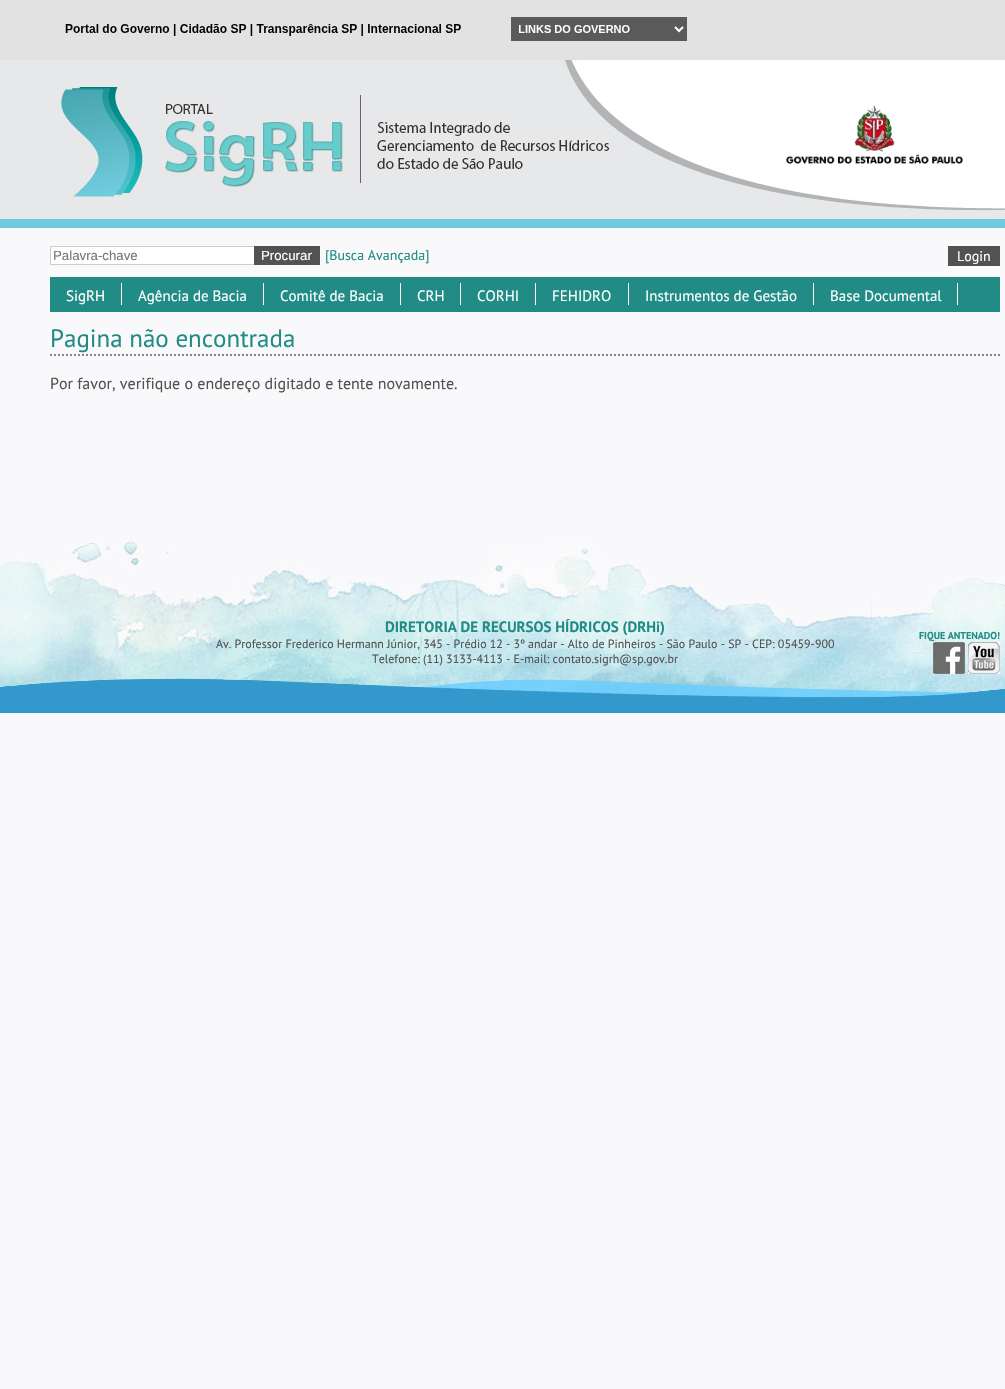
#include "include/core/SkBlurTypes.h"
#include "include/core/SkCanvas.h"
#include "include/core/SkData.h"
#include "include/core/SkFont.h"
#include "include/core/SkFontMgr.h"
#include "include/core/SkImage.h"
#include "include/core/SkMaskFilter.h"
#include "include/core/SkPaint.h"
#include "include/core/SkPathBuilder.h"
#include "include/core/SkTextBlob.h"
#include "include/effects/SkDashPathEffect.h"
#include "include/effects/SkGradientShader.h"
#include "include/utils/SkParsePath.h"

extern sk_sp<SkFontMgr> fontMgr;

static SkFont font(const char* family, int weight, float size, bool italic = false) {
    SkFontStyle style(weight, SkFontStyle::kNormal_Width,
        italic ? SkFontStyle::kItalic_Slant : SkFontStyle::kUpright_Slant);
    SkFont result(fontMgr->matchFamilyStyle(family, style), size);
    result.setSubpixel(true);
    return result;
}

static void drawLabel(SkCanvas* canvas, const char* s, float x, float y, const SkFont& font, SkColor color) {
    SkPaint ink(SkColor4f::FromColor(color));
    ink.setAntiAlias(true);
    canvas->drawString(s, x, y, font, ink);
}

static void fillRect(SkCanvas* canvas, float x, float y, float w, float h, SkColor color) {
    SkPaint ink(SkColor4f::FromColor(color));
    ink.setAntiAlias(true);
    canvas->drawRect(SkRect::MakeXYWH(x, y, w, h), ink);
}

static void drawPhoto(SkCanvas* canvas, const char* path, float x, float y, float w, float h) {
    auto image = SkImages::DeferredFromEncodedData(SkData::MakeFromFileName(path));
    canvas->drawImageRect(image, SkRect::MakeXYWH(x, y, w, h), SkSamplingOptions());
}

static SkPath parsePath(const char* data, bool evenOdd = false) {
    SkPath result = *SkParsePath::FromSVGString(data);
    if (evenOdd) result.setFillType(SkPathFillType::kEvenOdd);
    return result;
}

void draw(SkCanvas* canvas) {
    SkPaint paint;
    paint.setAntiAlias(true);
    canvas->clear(0xFFF9F9FB);
    fillRect(canvas, 0, 0, 1005, 60, 0xFFE1E2E1);
    drawPhoto(canvas, "assets/img1.png", 65, 17, 622, 24);
    drawPhoto(canvas, "assets/img2.png", 0, 60, 525, 168);
    drawPhoto(canvas, "assets/img3.png", 525, 211, 480, 17);
    drawPhoto(canvas, "assets/img4.png", 61, 60, 944, 151);
    drawPhoto(canvas, "assets/img5.png", 786, 105, 177, 59);
    fillRect(canvas, 51, 247, 203, 17, 0xFFFFFFFF);
    paint.setStroke(true);
    paint.setStrokeWidth(1);
    paint.setColor(0xFFCCCCCC);
    canvas->drawRect(SkRect::MakeXYWH(50.5f, 246.5f, 205, 18), paint);
    SkFont font1 = font("Liberation Sans", 400, 13.25f);
    drawLabel(canvas, "Palavra-chave", 53, 260, font1, 0xFF757575);
    fillRect(canvas, 254, 246, 66, 19, 0xFF525252);
    drawLabel(canvas, "Procurar", 261, 260, font1, 0xFFFFFFFF);
    SkFont font2 = font("PT Sans", 400, 14);
    drawLabel(canvas, "[Busca Avançada]", 325, 260, font2, 0xFF218C85);
    fillRect(canvas, 948, 246, 52, 20, 0xFF525252);
    drawLabel(canvas, "Login", 957, 261, font2, 0xFFFFFFFF);
    fillRect(canvas, 50, 277, 950, 35, 0xFF218C85);
    fillRect(canvas, 121, 283, 1, 22, 0xFFFFFFFF);
    SkFont font3 = font("PT Sans", 400, 15);
    drawLabel(canvas, "SigRH", 66, 301, font3, 0xFFFFFFFF);
    fillRect(canvas, 263, 283, 1, 22, 0xFFFFFFFF);
    drawLabel(canvas, "Agência de Bacia", 138, 301, font3, 0xFFFFFFFF);
    fillRect(canvas, 400, 283, 1, 22, 0xFFFFFFFF);
    drawLabel(canvas, "Comitê de Bacia", 280, 301, font3, 0xFFFFFFFF);
    fillRect(canvas, 460, 283, 1, 22, 0xFFFFFFFF);
    drawLabel(canvas, "CRH", 417, 301, font3, 0xFFFFFFFF);
    fillRect(canvas, 535, 283, 1, 22, 0xFFFFFFFF);
    drawLabel(canvas, "CORHI", 477, 301, font3, 0xFFFFFFFF);
    fillRect(canvas, 628, 283, 1, 22, 0xFFFFFFFF);
    drawLabel(canvas, "FEHIDRO", 552, 301, font3, 0xFFFFFFFF);
    fillRect(canvas, 813, 283, 1, 22, 0xFFFFFFFF);
    drawLabel(canvas, "Instrumentos de Gestão", 645, 301, font3, 0xFFFFFFFF);
    fillRect(canvas, 957, 283, 1, 22, 0xFFFFFFFF);
    drawLabel(canvas, "Base Documental", 830, 301, font3, 0xFFFFFFFF);
    paint.setStrokeWidth(2);
    paint.setColor(0xFF858587);
    paint.setPathEffect(SkDashPathEffect::Make({{2, 2}}, 0));
    canvas->drawPath(parsePath("M50 355H1000"), paint);
    paint.setPathEffect(nullptr);
    SkFont font4 = font("PT Sans", 400, 25);
    drawLabel(canvas, "Pagina não encontrada", 50, 347, font4, 0xFF218C85);
    SkFont font5 = font("PT Sans", 400, 16);
    drawLabel(canvas, "Por favor, verifique o endereço digitado e tente novamente.", 50, 389, font5, 0xFF525252);
    drawPhoto(canvas, "assets/img6.png", 0, 542, 1005, 171);
    SkFont font6 = font("PT Sans", 700, 15);
    drawLabel(canvas, "DIRETORIA DE RECURSOS HÍDRICOS (DRHi)", 385, 632, font6, 0xFF218C85);
    SkFont font7 = font("PT Sans", 400, 12);
    drawLabel(canvas, "Av. Professor Frederico Hermann Júnior, 345 - Prédio 12 - 3º andar - Alto de Pinheiros - São Paulo - SP - CEP: 05459-900", 216, 648, font7, 0xFF525252);
    drawLabel(canvas, "Telefone: (11) 3133-4113 - E-mail: contato.sigrh@sp.gov.br", 372, 663, font7, 0xFF525252);
    SkFont font8 = font("PT Sans", 700, 10);
    drawLabel(canvas, "FIQUE ANTENADO!", 919, 639, font8, 0xFF218C85);
    drawPhoto(canvas, "assets/img7.png", 933, 642, 32, 32);
    drawPhoto(canvas, "assets/img8.png", 968, 642, 32, 32);
}
